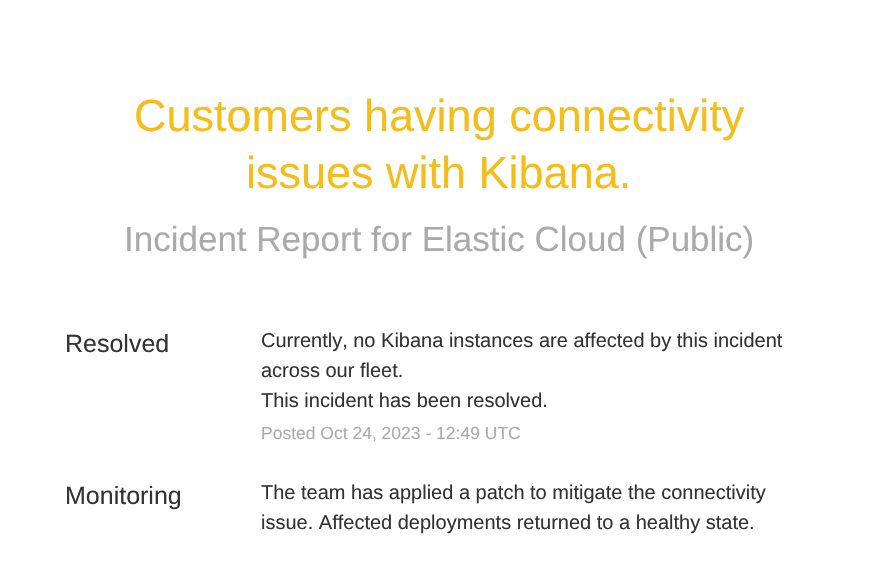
#include "include/core/SkBlurTypes.h"
#include "include/core/SkCanvas.h"
#include "include/core/SkData.h"
#include "include/core/SkFont.h"
#include "include/core/SkFontMgr.h"
#include "include/core/SkImage.h"
#include "include/core/SkMaskFilter.h"
#include "include/core/SkPaint.h"
#include "include/core/SkPathBuilder.h"
#include "include/core/SkTextBlob.h"
#include "include/effects/SkDashPathEffect.h"
#include "include/effects/SkGradientShader.h"
#include "include/utils/SkParsePath.h"

extern sk_sp<SkFontMgr> fontMgr;

static SkFont font(const char* family, int weight, float size, bool italic = false) {
    SkFontStyle style(weight, SkFontStyle::kNormal_Width,
        italic ? SkFontStyle::kItalic_Slant : SkFontStyle::kUpright_Slant);
    SkFont result(fontMgr->matchFamilyStyle(family, style), size);
    result.setSubpixel(true);
    return result;
}

static void drawLabel(SkCanvas* canvas, const char* s, float x, float y, const SkFont& font, SkColor color) {
    SkPaint ink(SkColor4f::FromColor(color));
    ink.setAntiAlias(true);
    canvas->drawString(s, x, y, font, ink);
}

void draw(SkCanvas* canvas) {
    SkPaint paint;
    paint.setAntiAlias(true);
    canvas->clear(0xFFFFFFFF);
    SkFont font1 = font("Liberation Sans", 400, 45);
    drawLabel(canvas, "Customers having connectivity", 134, 131, font1, 0xFFF4BD19);
    drawLabel(canvas, "issues with Kibana.", 246, 188, font1, 0xFFF4BD19);
    SkFont font2 = font("Liberation Sans", 400, 35);
    drawLabel(canvas, "Incident Report for Elastic Cloud (Public)", 124, 251, font2, 0xFFAAAAAA);
    SkFont font3 = font("Liberation Sans", 400, 25);
    drawLabel(canvas, "Resolved", 65, 352, font3, 0xFF333333);
    SkFont font4 = font("Liberation Sans", 400, 20);
    drawLabel(canvas, "Currently, no Kibana instances are affected by this incident", 261, 347, font4, 0xFF333333);
    drawLabel(canvas, "across our fleet.", 261, 377, font4, 0xFF333333);
    drawLabel(canvas, "This incident has been resolved.", 261, 407, font4, 0xFF333333);
    SkFont font5 = font("Liberation Sans", 400, 17.5f);
    drawLabel(canvas, "Posted Oct 24, 2023 - 12:49 UTC", 261, 439, font5, 0xFFAAAAAA);
    drawLabel(canvas, "Monitoring", 65, 504, font3, 0xFF333333);
    drawLabel(canvas, "The team has applied a patch to mitigate the connectivity", 261, 499, font4, 0xFF333333);
    drawLabel(canvas, "issue. Affected deployments returned to a healthy state.", 261, 529, font4, 0xFF333333);
}
